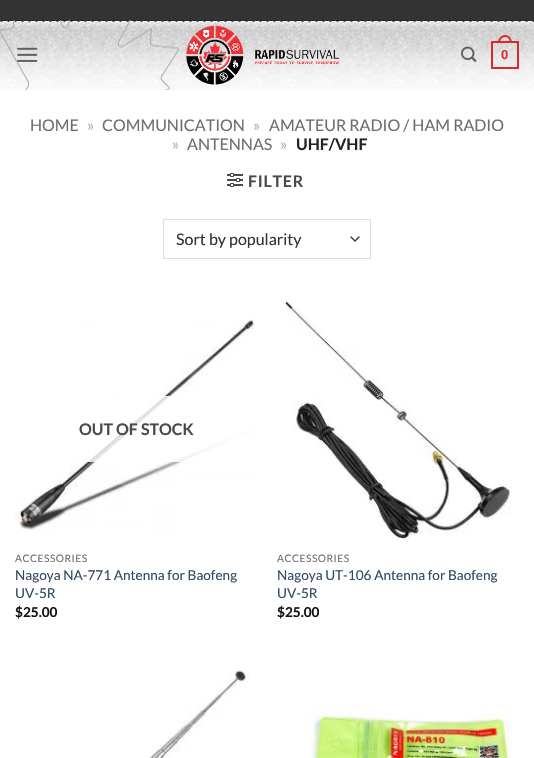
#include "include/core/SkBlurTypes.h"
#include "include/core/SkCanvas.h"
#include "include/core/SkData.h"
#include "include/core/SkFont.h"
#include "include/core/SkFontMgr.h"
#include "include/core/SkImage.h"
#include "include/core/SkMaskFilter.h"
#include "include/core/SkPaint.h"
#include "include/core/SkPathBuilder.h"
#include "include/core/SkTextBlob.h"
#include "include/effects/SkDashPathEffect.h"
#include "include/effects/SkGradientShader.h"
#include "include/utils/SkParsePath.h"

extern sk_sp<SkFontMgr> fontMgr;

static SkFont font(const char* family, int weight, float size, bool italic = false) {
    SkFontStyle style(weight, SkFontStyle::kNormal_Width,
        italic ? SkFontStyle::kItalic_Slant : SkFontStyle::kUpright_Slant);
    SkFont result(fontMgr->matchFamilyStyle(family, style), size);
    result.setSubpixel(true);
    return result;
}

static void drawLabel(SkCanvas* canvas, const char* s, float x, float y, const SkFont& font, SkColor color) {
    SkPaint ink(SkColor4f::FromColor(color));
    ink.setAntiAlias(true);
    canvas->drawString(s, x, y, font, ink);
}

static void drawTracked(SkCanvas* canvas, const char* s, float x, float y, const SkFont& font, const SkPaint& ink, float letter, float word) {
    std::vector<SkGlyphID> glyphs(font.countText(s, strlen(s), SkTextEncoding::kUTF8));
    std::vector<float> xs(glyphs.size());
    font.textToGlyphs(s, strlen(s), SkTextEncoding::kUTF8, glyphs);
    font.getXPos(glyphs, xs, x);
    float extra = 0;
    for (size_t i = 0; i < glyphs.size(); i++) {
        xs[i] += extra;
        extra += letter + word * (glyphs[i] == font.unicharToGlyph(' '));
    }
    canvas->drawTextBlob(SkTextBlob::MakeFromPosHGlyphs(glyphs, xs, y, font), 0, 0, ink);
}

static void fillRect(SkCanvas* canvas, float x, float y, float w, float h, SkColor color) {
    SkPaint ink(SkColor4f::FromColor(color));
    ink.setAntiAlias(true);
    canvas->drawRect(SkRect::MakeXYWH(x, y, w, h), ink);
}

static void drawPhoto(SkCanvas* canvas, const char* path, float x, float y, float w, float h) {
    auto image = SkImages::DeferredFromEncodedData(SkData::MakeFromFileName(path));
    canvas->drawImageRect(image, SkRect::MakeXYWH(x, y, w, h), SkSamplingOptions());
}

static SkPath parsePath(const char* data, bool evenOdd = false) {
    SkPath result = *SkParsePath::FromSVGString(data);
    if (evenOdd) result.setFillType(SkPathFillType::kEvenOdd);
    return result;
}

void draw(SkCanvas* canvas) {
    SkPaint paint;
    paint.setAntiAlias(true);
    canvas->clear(0xFFFFFFFF);
    fillRect(canvas, 0, 0, 534, 20, 0xFF333333);
    drawPhoto(canvas, "assets/img1.png", 0, 20, 534, 70);
    drawPhoto(canvas, "assets/img2.png", 0, 20, 179, 70);
    drawPhoto(canvas, "assets/img3.png", 17, 47, 21, 15);
    drawPhoto(canvas, "assets/img4.png", 186, 25, 153, 60);
    drawPhoto(canvas, "assets/img5.png", 461, 46, 16, 16);
    paint.setStroke(true);
    paint.setStrokeWidth(2);
    paint.setColor(0xFFDB2929);
    canvas->drawRect(SkRect::MakeXYWH(492, 42, 26, 26), paint);
    paint.setStroke(false);
    canvas->drawPath(parsePath("M505 35C509.5 35 512 39 512 43H498C498 39 500.5 35 505 35ZM505 37C508.5 37 510 40 510 43H500C500 40 501.5 37 505 37Z", true), paint);
    SkFont font1 = font("Liberation Sans", 700, 13);
    drawLabel(canvas, "0", 501, 59, font1, 0xFFDB2929);
    SkFont font2 = font("Lato", 400, 16);
    drawLabel(canvas, "HOME", 30, 131, font2, 0xFF6E6E6E);
    drawLabel(canvas, "»", 87, 131, font2, 0xFFB2B2B2);
    drawLabel(canvas, "COMMUNICATION", 102, 131, font2, 0xFF6E6E6E);
    drawLabel(canvas, "»", 253, 131, font2, 0xFFB2B2B2);
    drawLabel(canvas, "AMATEUR RADIO / HAM RADIO", 269, 131, font2, 0xFF6E6E6E);
    drawLabel(canvas, "»", 172, 150, font2, 0xFFB2B2B2);
    drawLabel(canvas, "ANTENNAS", 187, 150, font2, 0xFF6E6E6E);
    drawLabel(canvas, "»", 280, 150, font2, 0xFFB2B2B2);
    SkFont font3 = font("Lato", 700, 16);
    drawLabel(canvas, "UHF/VHF", 296, 150, font3, 0xFF222222);
    drawPhoto(canvas, "assets/img6.png", 227, 173, 16, 14);
    paint.setColor(0xFF4A4A4A);
    drawTracked(canvas, "FILTER", 248, 187, font3, paint, 0.75f, 0);
    paint.setStroke(true);
    paint.setStrokeWidth(1.3f);
    paint.setStrokeCap(SkPaint::kRound_Cap);
    paint.setStrokeJoin(SkPaint::kRound_Join);
    paint.setColor(0xFF333333);
    canvas->drawPath(parsePath("M351 237L355 241L359 237"), paint);
    paint.setStrokeWidth(1);
    paint.setStrokeCap(SkPaint::kButt_Cap);
    paint.setStrokeJoin(SkPaint::kMiter_Join);
    paint.setColor(0xFFDDDDDD);
    canvas->drawRect(SkRect::MakeXYWH(163.5f, 219.5f, 207, 39), paint);
    drawLabel(canvas, "Sort by popularity", 176, 245, font2, 0xFF333333);
    drawPhoto(canvas, "assets/img7.png", 15, 319, 239, 216);
    fillRect(canvas, 86, 396, 162, 66, 0xCFFFFFFF);
    drawLabel(canvas, "OUT OF STOCK", 79, 435, font3, 0xFF4A4A4A);
    SkFont font4 = font("Lato", 400, 10.25f);
    paint.setStroke(false);
    paint.setColor(0xFF6E6E6E);
    drawTracked(canvas, "ACCESSORIES", 15, 562, font4, paint, 0.5f, 0);
    SkFont font5 = font("Lato", 400, 13.6f);
    drawLabel(canvas, "Nagoya NA-771 Antenna for Baofeng", 15, 580, font5, 0xFF334862);
    drawLabel(canvas, "UV-5R", 15, 598, font5, 0xFF334862);
    SkFont font6 = font("Lato", 700, 13.6f);
    drawLabel(canvas, "$25.00", 15, 617, font6, 0xFF111111);
    drawPhoto(canvas, "assets/img8.png", 285, 299, 227, 242);
    drawTracked(canvas, "ACCESSORIES", 277, 562, font4, paint, 0.5f, 0);
    drawLabel(canvas, "Nagoya UT-106 Antenna for Baofeng", 277, 580, font5, 0xFF334862);
    drawLabel(canvas, "UV-5R", 277, 598, font5, 0xFF334862);
    drawLabel(canvas, "$25.00", 277, 617, font6, 0xFF111111);
    drawPhoto(canvas, "assets/img9.png", 148, 670, 102, 88);
    drawPhoto(canvas, "assets/img10.png", 308, 705, 205, 53);
}
